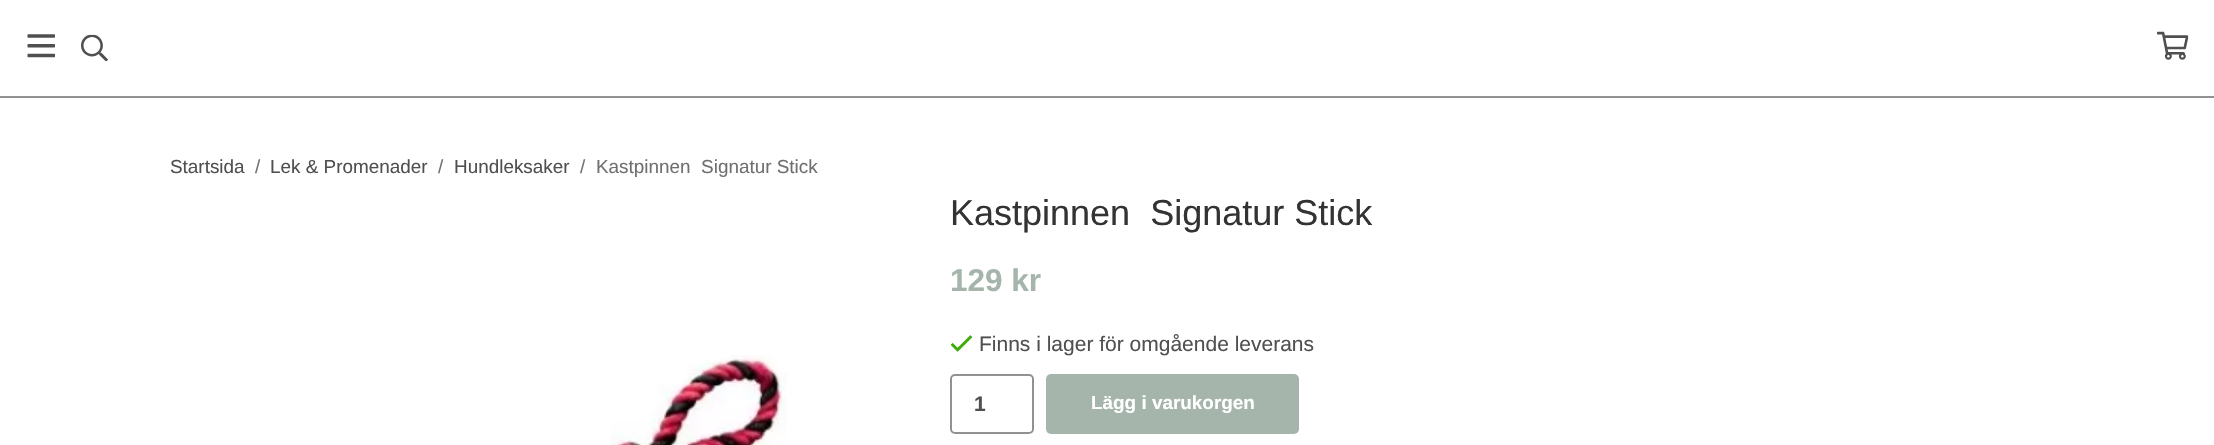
#include "include/core/SkBlurTypes.h"
#include "include/core/SkCanvas.h"
#include "include/core/SkData.h"
#include "include/core/SkFont.h"
#include "include/core/SkFontMgr.h"
#include "include/core/SkImage.h"
#include "include/core/SkMaskFilter.h"
#include "include/core/SkPaint.h"
#include "include/core/SkPathBuilder.h"
#include "include/core/SkTextBlob.h"
#include "include/effects/SkDashPathEffect.h"
#include "include/effects/SkGradientShader.h"
#include "include/utils/SkParsePath.h"

extern sk_sp<SkFontMgr> fontMgr;

static SkFont font(const char* family, int weight, float size, bool italic = false) {
    SkFontStyle style(weight, SkFontStyle::kNormal_Width,
        italic ? SkFontStyle::kItalic_Slant : SkFontStyle::kUpright_Slant);
    SkFont result(fontMgr->matchFamilyStyle(family, style), size);
    result.setSubpixel(true);
    return result;
}

static void drawLabel(SkCanvas* canvas, const char* s, float x, float y, const SkFont& font, SkColor color) {
    SkPaint ink(SkColor4f::FromColor(color));
    ink.setAntiAlias(true);
    canvas->drawString(s, x, y, font, ink);
}

static void fillRect(SkCanvas* canvas, float x, float y, float w, float h, SkColor color) {
    SkPaint ink(SkColor4f::FromColor(color));
    ink.setAntiAlias(true);
    canvas->drawRect(SkRect::MakeXYWH(x, y, w, h), ink);
}

static void fillRRect(SkCanvas* canvas, float x, float y, float w, float h, float radius, SkColor color) {
    SkPaint ink(SkColor4f::FromColor(color));
    ink.setAntiAlias(true);
    canvas->drawRoundRect(SkRect::MakeXYWH(x, y, w, h), radius, radius, ink);
}

static void drawPhoto(SkCanvas* canvas, const char* path, float x, float y, float w, float h) {
    auto image = SkImages::DeferredFromEncodedData(SkData::MakeFromFileName(path));
    canvas->drawImageRect(image, SkRect::MakeXYWH(x, y, w, h), SkSamplingOptions());
}

void draw(SkCanvas* canvas) {
    SkPaint paint;
    paint.setAntiAlias(true);
    canvas->clear(0xFFFFFFFF);
    fillRect(canvas, 0, 96, 2214, 2, 0xFF919191);
    drawPhoto(canvas, "assets/img1.png", 27, 34, 28, 24);
    drawPhoto(canvas, "assets/img2.png", 81, 34, 27, 28);
    drawPhoto(canvas, "assets/img3.png", 2157, 31, 32, 29);
    SkFont font1 = font("Liberation Sans", 400, 18.9f);
    drawLabel(canvas, "Startsida", 170, 173, font1, 0xFF505050);
    drawLabel(canvas, "/", 255, 173, font1, 0xFF707070);
    drawLabel(canvas, "Lek & Promenader", 270, 173, font1, 0xFF505050);
    drawLabel(canvas, "/", 438, 173, font1, 0xFF707070);
    drawLabel(canvas, "Hundleksaker", 454, 173, font1, 0xFF505050);
    drawLabel(canvas, "/", 580, 173, font1, 0xFF707070);
    drawLabel(canvas, "Kastpinnen  Signatur Stick", 596, 173, font1, 0xFF707070);
    drawPhoto(canvas, "assets/img4.png", 611, 355, 176, 90);
    SkFont font2 = font("Liberation Sans", 400, 36);
    drawLabel(canvas, "Kastpinnen  Signatur Stick", 950, 225, font2, 0xFF333333);
    SkFont font3 = font("Liberation Sans", 700, 31.5f);
    drawLabel(canvas, "129 kr", 950, 291, font3, 0xFFA5B5AC);
    drawPhoto(canvas, "assets/img5.png", 950, 335, 23, 17);
    SkFont font4 = font("Liberation Sans", 400, 21);
    drawLabel(canvas, "Finns i lager för omgående leverans", 979, 351, font4, 0xFF505050);
    paint.setStroke(true);
    paint.setStrokeWidth(2);
    paint.setColor(0xFF919191);
    canvas->drawRoundRect(SkRect::MakeXYWH(951, 375, 82, 58), 4, 4, paint);
    SkFont font5 = font("Liberation Sans", 700, 21);
    drawLabel(canvas, "1", 974, 411, font5, 0xFF505050);
    fillRRect(canvas, 1046, 374, 253, 60, 5, 0xFFA5B5AC);
    SkFont font6 = font("Liberation Sans", 700, 18.9f);
    drawLabel(canvas, "Lägg i varukorgen", 1091, 409, font6, 0xFFFFFFFF);
}
